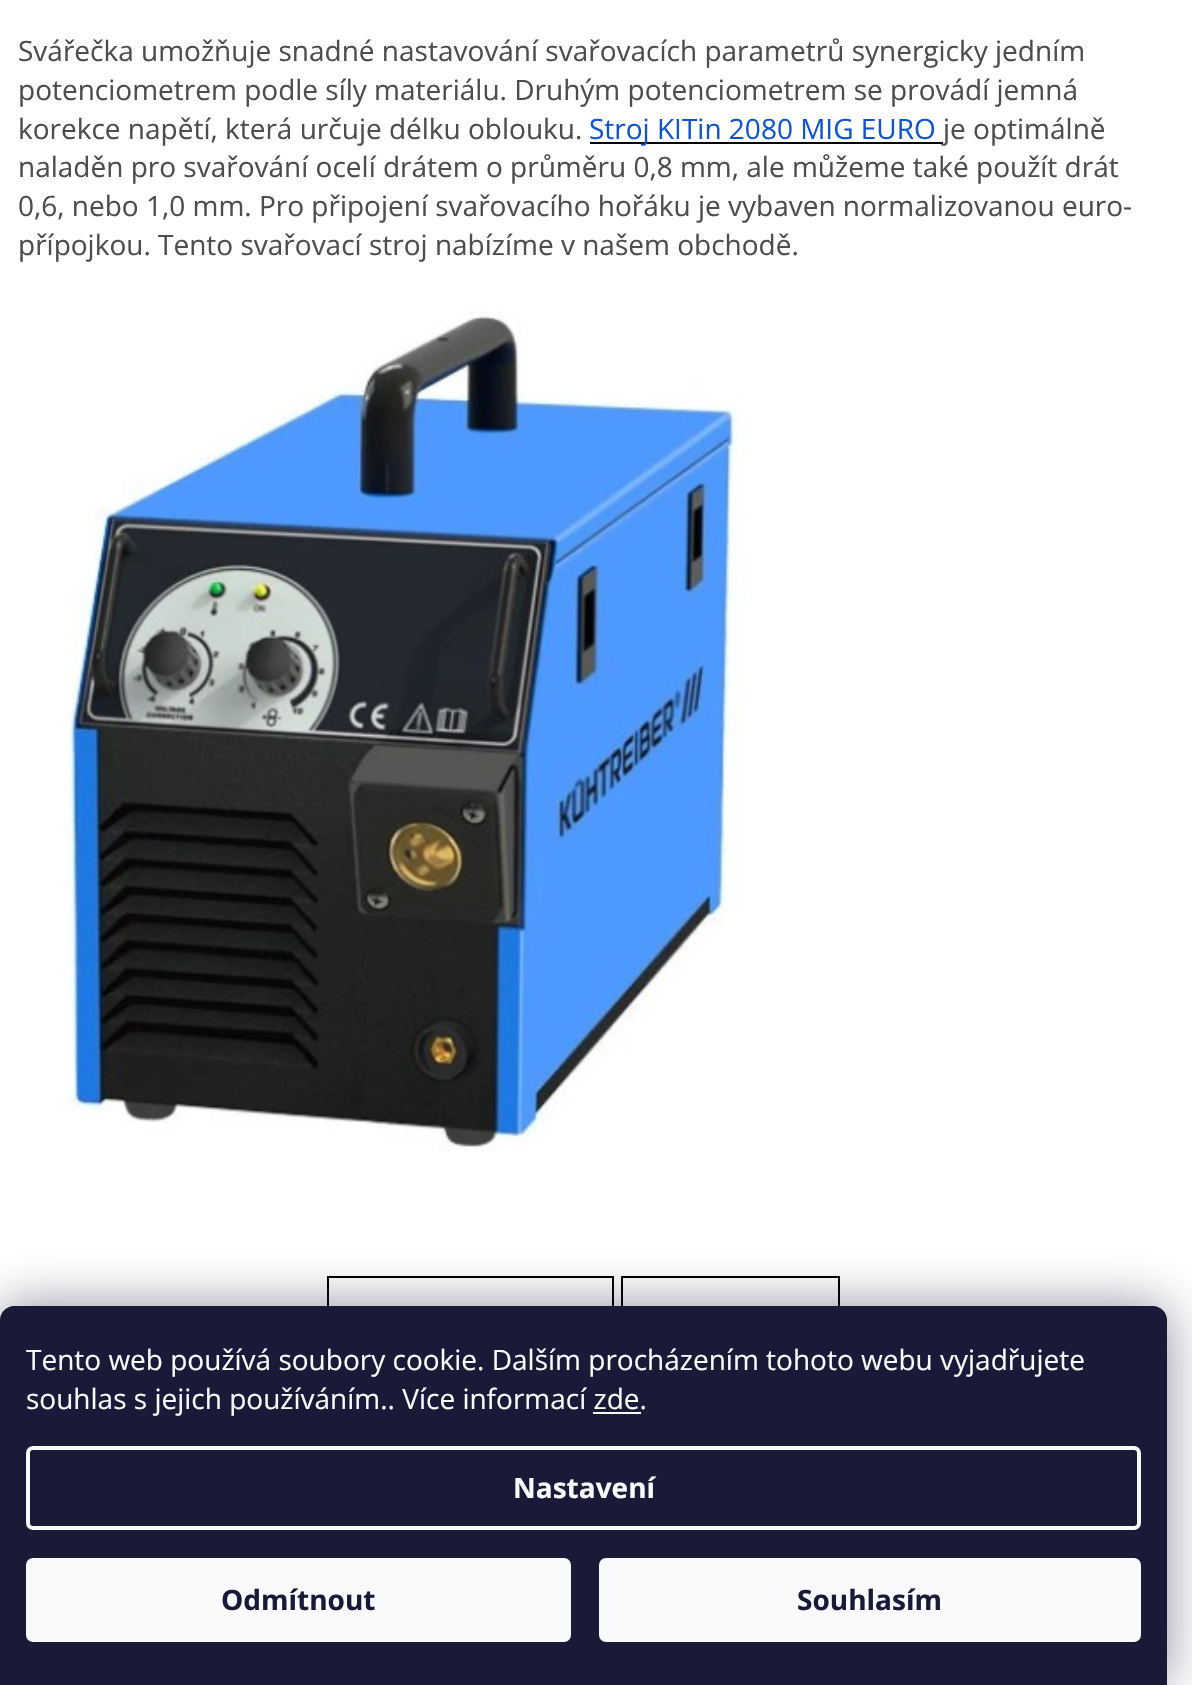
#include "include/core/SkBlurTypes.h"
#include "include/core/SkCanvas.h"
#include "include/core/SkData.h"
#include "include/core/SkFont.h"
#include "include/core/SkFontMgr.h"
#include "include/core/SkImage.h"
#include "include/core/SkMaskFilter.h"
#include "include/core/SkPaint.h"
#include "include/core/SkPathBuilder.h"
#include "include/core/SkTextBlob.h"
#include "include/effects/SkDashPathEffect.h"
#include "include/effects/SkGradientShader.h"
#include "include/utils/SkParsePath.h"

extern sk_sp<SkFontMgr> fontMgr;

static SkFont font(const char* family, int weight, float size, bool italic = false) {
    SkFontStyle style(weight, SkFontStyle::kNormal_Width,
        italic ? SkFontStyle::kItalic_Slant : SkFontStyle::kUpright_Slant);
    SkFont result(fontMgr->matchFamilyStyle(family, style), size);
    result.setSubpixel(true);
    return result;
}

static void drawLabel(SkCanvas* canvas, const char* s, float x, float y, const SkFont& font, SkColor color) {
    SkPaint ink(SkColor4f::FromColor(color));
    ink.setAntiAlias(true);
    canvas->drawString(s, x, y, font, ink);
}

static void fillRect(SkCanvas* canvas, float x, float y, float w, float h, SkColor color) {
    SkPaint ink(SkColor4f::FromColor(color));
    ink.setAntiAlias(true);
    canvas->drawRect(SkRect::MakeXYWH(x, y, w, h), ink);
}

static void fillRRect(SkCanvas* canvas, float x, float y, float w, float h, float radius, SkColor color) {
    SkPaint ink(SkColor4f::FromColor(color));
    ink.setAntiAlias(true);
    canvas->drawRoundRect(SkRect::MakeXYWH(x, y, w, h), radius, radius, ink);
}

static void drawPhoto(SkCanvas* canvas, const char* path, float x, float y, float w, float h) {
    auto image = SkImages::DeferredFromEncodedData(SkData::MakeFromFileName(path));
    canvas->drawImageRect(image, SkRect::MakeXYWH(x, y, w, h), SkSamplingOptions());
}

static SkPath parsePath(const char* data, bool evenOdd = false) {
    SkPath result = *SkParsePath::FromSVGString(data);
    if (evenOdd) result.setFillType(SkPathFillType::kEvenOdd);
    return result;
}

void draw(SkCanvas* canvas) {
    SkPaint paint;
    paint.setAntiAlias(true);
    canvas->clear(0xFFFFFFFF);
    SkFont font1 = font("Open Sans", 400, 28);
    drawLabel(canvas, "Svářečka umožňuje snadné nastavování svařovacích parametrů synergicky jedním", 18, 61, font1, 0xFF4D4D4D);
    drawLabel(canvas, "potenciometrem podle síly materiálu. Druhým potenciometrem se provádí jemná", 18, 100, font1, 0xFF4D4D4D);
    drawLabel(canvas, "korekce napětí, která určuje délku oblouku.", 18, 139, font1, 0xFF4D4D4D);
    fillRect(canvas, 590, 142, 353, 2, 0xFF000000);
    drawLabel(canvas, "Stroj KITin 2080 MIG EURO", 589, 139, font1, 0xFF1155CC);
    drawLabel(canvas, "je optimálně", 943, 139, font1, 0xFF4D4D4D);
    drawLabel(canvas, "naladěn pro svařování ocelí drátem o průměru 0,8 mm, ale můžeme také použít drát", 18, 177, font1, 0xFF4D4D4D);
    drawLabel(canvas, "0,6, nebo 1,0 mm. Pro připojení svařovacího hořáku je vybaven normalizovanou euro-", 18, 216, font1, 0xFF4D4D4D);
    drawLabel(canvas, "přípojkou. Tento svařovací stroj nabízíme v našem obchodě.", 18, 255, font1, 0xFF4D4D4D);
    drawPhoto(canvas, "assets/img1.png", 66, 311, 679, 841);
    paint.setStroke(true);
    paint.setStrokeWidth(2);
    paint.setColor(0xFF000000);
    canvas->drawRect(SkRect::MakeXYWH(328, 1277, 285, 61), paint);
    canvas->drawRect(SkRect::MakeXYWH(622, 1277, 217, 61), paint);
    paint.setStroke(false);
    paint.setColor(0x801B1939);
    paint.setMaskFilter(SkMaskFilter::MakeBlur(kNormal_SkBlurStyle, 26));
    canvas->drawRoundRect(SkRect::MakeXYWH(0, 1306, 1167, 379), 14, 14, paint);
    paint.setMaskFilter(nullptr);
    paint.setColor(0xFF1A1937);
    canvas->drawPath(parsePath("M14 1306H1153C1160.5 1306 1167 1312.5 1167 1320V1685H0V1320C0 1312.5 6.5 1306 14 1306Z"), paint);
    drawLabel(canvas, "Tento web používá soubory cookie. Dalším procházením tohoto webu vyjadřujete", 26, 1370, font1, 0xFFF8FAFB);
    drawLabel(canvas, "souhlas s jejich používáním.. Více informací zde.", 26, 1409, font1, 0xFFF8FAFB);
    fillRect(canvas, 593, 1412, 48, 2, 0xFFF8FAFB);
    paint.setStroke(true);
    paint.setStrokeWidth(4);
    paint.setColor(0xFFF8FAFB);
    canvas->drawRoundRect(SkRect::MakeXYWH(28, 1448, 1111, 80), 5, 5, paint);
    SkFont font2 = font("Open Sans", 700, 28);
    drawLabel(canvas, "Nastavení", 513, 1498, font2, 0xFFF8FAFB);
    fillRRect(canvas, 26, 1558, 545, 84, 7, 0xFFF8FAFB);
    drawLabel(canvas, "Odmítnout", 221, 1610, font2, 0xFF1A1937);
    fillRRect(canvas, 599, 1558, 542, 84, 7, 0xFFF8FAFB);
    drawLabel(canvas, "Souhlasím", 797, 1610, font2, 0xFF1A1937);
}
